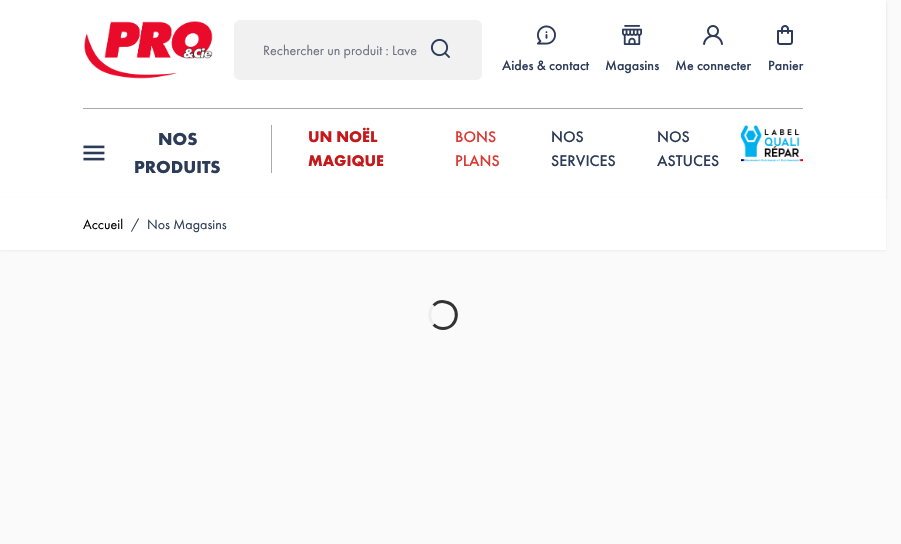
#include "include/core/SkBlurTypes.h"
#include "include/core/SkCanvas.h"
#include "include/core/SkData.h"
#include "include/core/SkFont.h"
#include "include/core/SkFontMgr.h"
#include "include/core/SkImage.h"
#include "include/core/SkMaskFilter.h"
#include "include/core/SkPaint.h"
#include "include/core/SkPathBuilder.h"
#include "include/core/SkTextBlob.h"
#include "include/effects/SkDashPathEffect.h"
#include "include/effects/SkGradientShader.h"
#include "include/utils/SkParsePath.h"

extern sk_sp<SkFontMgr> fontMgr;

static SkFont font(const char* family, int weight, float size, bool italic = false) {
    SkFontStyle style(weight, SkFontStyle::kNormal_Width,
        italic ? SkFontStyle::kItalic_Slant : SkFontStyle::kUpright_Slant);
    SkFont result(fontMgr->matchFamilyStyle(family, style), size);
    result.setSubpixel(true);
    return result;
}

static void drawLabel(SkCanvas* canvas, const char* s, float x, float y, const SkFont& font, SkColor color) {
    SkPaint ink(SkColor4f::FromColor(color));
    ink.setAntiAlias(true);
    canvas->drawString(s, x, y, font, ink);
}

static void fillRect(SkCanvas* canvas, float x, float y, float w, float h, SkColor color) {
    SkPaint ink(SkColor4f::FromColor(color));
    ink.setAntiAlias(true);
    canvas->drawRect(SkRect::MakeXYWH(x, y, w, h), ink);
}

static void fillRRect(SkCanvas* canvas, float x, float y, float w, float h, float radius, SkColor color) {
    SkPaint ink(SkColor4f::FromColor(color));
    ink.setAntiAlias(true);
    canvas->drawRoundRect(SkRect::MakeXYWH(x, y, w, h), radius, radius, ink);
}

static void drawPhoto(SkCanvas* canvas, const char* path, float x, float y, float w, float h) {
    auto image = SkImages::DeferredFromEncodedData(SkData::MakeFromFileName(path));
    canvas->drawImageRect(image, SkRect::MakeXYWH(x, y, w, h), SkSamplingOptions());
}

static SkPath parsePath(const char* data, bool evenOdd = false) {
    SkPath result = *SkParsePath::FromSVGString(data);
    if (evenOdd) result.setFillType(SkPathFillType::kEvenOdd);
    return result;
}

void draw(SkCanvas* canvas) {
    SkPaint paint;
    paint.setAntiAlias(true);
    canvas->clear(0xFFFAFAFA);
    paint.setColor(0x1A000000);
    paint.setMaskFilter(SkMaskFilter::MakeBlur(kNormal_SkBlurStyle, 1.5f));
    canvas->drawRect(SkRect::MakeXYWH(0, 1, 886, 198), paint);
    paint.setMaskFilter(nullptr);
    fillRect(canvas, 0, 0, 886, 198, 0xFFFFFFFF);
    drawPhoto(canvas, "assets/img1.png", 84, 21, 129, 58);
    fillRRect(canvas, 234, 20, 248, 60, 6, 0xFFF1F1F1);
    SkFont font1 = font("Futura PT", 400, 14);
    drawLabel(canvas, "Rechercher un produit : Lave", 263, 55, font1, 0xFF6B7280);
    drawPhoto(canvas, "assets/img2.png", 430, 38, 20, 20);
    drawPhoto(canvas, "assets/img3.png", 537, 25, 19, 20);
    SkFont font2 = font("Futura PT", 500, 14);
    drawLabel(canvas, "Aides & contact", 502, 70, font2, 0xFF2C3B57);
    drawPhoto(canvas, "assets/img4.png", 622, 25, 20, 20);
    drawLabel(canvas, "Magasins", 605, 70, font2, 0xFF2C3B57);
    drawPhoto(canvas, "assets/img5.png", 703, 25, 20, 20);
    drawLabel(canvas, "Me connecter", 675, 70, font2, 0xFF2C3B57);
    drawPhoto(canvas, "assets/img6.png", 777, 25, 16, 20);
    drawLabel(canvas, "Panier", 768, 70, font2, 0xFF2C3B57);
    fillRect(canvas, 83, 108, 720, 1, 0xFFAAAAAA);
    drawPhoto(canvas, "assets/img7.png", 83, 145, 22, 16);
    SkFont font3 = font("Futura PT", 700, 18);
    drawLabel(canvas, "NOS", 158, 145, font3, 0xFF2C3B57);
    drawLabel(canvas, "PRODUITS", 134, 173, font3, 0xFF2C3B57);
    fillRect(canvas, 271, 125, 1, 48, 0xFFAAAAAA);
    SkFont font4 = font("Futura PT", 700, 16);
    drawLabel(canvas, "UN NOËL", 308, 142, font4, 0xFFC51A1B);
    drawLabel(canvas, "MAGIQUE", 308, 166, font4, 0xFFC51A1B);
    SkFont font5 = font("Futura PT", 500, 16);
    drawLabel(canvas, "BONS", 455, 142, font5, 0xFFDB3832);
    drawLabel(canvas, "PLANS", 455, 166, font5, 0xFFDB3832);
    drawLabel(canvas, "NOS", 551, 142, font5, 0xFF2C3B57);
    drawLabel(canvas, "SERVICES", 551, 166, font5, 0xFF2C3B57);
    drawLabel(canvas, "NOS", 657, 142, font5, 0xFF2C3B57);
    drawLabel(canvas, "ASTUCES", 657, 166, font5, 0xFF2C3B57);
    drawPhoto(canvas, "assets/img8.png", 741, 125, 62, 37);
    paint.setColor(0x0D000000);
    paint.setMaskFilter(SkMaskFilter::MakeBlur(kNormal_SkBlurStyle, 1));
    canvas->drawRect(SkRect::MakeXYWH(0, 199, 886, 52), paint);
    paint.setMaskFilter(nullptr);
    fillRect(canvas, 0, 198, 886, 52, 0xFFFFFFFF);
    drawLabel(canvas, "Accueil", 83, 229, font1, 0xFF000000);
    drawLabel(canvas, "/", 131, 229, font1, 0xFF2C3B57);
    drawLabel(canvas, "Nos Magasins", 147, 229, font1, 0xFF2C3B57);
    paint.setStroke(true);
    paint.setStrokeWidth(3);
    paint.setColor(0xFF333333);
    canvas->drawPath(parsePath("M433.5 305.5C436.5 302.5 441.5 301 445.5 302C461.5 305 459 328.5 443 328.5C439.5 328.5 436 327 433.5 324.5"), paint);
    paint.setColor(0xFFEEEEEE);
    canvas->drawPath(parsePath("M433.5 324.5C428.5 319.5 428.5 310.5 433.5 305.5"), paint);
}
